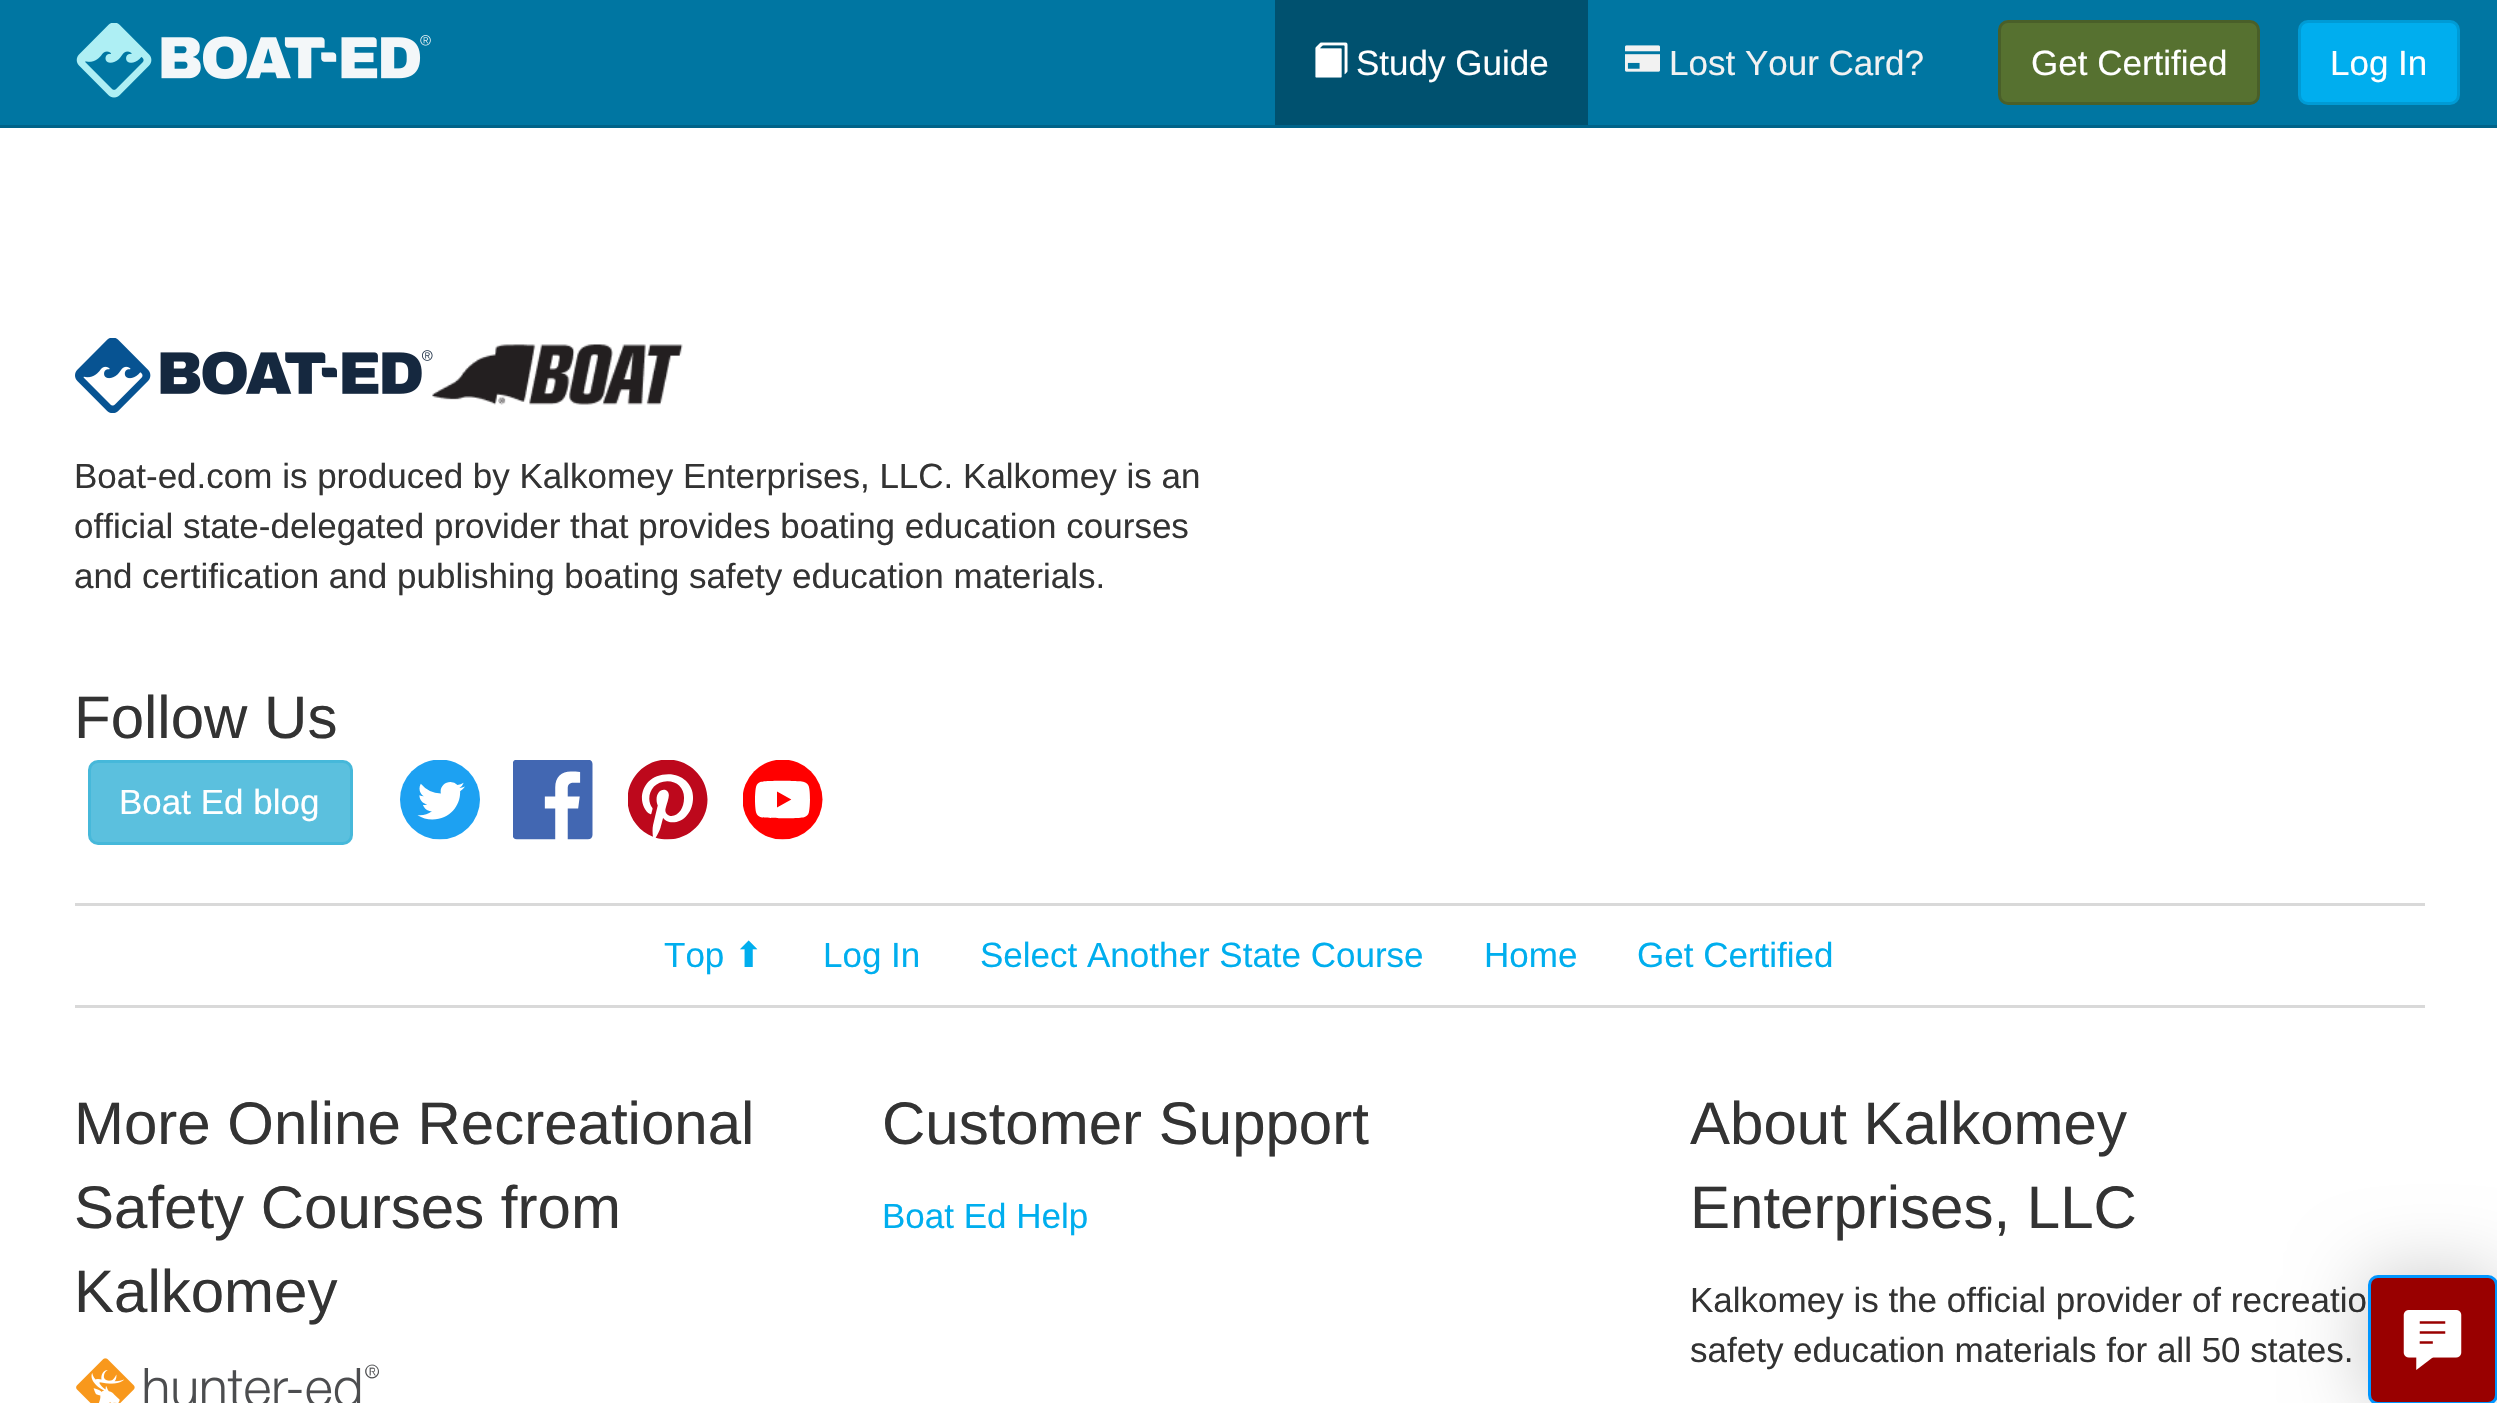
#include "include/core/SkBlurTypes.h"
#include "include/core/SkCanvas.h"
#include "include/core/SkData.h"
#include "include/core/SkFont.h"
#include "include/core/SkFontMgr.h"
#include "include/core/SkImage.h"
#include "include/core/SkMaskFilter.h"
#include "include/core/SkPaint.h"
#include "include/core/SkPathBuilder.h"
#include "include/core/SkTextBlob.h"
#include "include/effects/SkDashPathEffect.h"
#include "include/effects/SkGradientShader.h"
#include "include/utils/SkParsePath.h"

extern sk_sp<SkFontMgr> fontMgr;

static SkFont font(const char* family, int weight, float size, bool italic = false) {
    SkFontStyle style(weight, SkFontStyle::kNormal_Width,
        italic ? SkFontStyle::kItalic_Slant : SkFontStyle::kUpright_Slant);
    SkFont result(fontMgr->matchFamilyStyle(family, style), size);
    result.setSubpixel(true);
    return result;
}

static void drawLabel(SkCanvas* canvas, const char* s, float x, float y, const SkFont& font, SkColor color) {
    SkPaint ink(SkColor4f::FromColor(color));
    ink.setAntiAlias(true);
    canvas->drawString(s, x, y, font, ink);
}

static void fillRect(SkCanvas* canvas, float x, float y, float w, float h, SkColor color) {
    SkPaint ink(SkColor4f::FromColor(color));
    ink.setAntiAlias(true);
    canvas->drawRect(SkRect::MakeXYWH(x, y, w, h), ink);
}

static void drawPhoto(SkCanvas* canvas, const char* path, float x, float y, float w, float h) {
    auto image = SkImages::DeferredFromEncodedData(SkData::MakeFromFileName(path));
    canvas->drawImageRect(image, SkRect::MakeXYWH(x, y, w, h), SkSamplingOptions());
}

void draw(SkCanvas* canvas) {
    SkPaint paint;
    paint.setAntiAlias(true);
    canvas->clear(0xFFFFFFFF);
    fillRect(canvas, 0, 0, 2497, 125, 0xFF0076A2);
    fillRect(canvas, 0, 125, 2497, 3, 0xFF006389);
    drawPhoto(canvas, "assets/img1.png", 76, 23, 355, 75);
    fillRect(canvas, 1275, 0, 313, 125, 0xFF00516F);
    drawPhoto(canvas, "assets/img2.png", 1315, 42, 33, 36);
    SkFont font1 = font("Liberation Sans", 400, 35);
    drawLabel(canvas, "Study Guide", 1356, 75, font1, 0xFFFFFFFF);
    drawPhoto(canvas, "assets/img3.png", 1625, 45, 35, 27);
    drawLabel(canvas, "Lost Your Card?", 1669, 75, font1, 0xFFF2F2F2);
    paint.setColor(0xFF567130);
    canvas->drawRoundRect(SkRect::MakeXYWH(1999.5f, 21.5f, 259, 82), 8.5f, 8.5f, paint);
    paint.setStroke(true);
    paint.setStrokeWidth(3);
    paint.setColor(0xFF495F29);
    canvas->drawRoundRect(SkRect::MakeXYWH(1999.5f, 21.5f, 259, 82), 8.5f, 8.5f, paint);
    drawLabel(canvas, "Get Certified", 2031, 75, font1, 0xFFFFFFFF);
    paint.setStroke(false);
    paint.setColor(0xFF00AEEE);
    canvas->drawRoundRect(SkRect::MakeXYWH(2299.5f, 21.5f, 159, 82), 8.5f, 8.5f, paint);
    paint.setStroke(true);
    paint.setColor(0xFF009BD5);
    canvas->drawRoundRect(SkRect::MakeXYWH(2299.5f, 21.5f, 159, 82), 8.5f, 8.5f, paint);
    drawLabel(canvas, "Log In", 2330, 75, font1, 0xFFFFFFFF);
    drawPhoto(canvas, "assets/img4.png", 75, 338, 358, 75);
    drawPhoto(canvas, "assets/img5.png", 432, 344, 251, 61);
    drawLabel(canvas, "Boat-ed.com is produced by Kalkomey Enterprises, LLC. Kalkomey is an", 74, 488, font1, 0xFF333333);
    drawLabel(canvas, "official state-delegated provider that provides boating education courses", 74, 538, font1, 0xFF333333);
    drawLabel(canvas, "and certification and publishing boating safety education materials.", 74, 588, font1, 0xFF333333);
    SkFont font2 = font("Liberation Sans", 400, 60);
    drawLabel(canvas, "Follow Us", 74, 738, font2, 0xFF333333);
    paint.setStroke(false);
    paint.setColor(0xFF5BC0DE);
    canvas->drawRoundRect(SkRect::MakeXYWH(89.5f, 761.5f, 262, 82), 8.5f, 8.5f, paint);
    paint.setStroke(true);
    paint.setColor(0xFF46B8DA);
    canvas->drawRoundRect(SkRect::MakeXYWH(89.5f, 761.5f, 262, 82), 8.5f, 8.5f, paint);
    drawLabel(canvas, "Boat Ed blog", 119, 814, font1, 0xFFFFFFFF);
    drawPhoto(canvas, "assets/img6.png", 400, 760, 80, 80);
    drawPhoto(canvas, "assets/img7.png", 513, 760, 80, 80);
    drawPhoto(canvas, "assets/img8.png", 628, 760, 80, 80);
    drawPhoto(canvas, "assets/img9.png", 743, 760, 80, 80);
    fillRect(canvas, 75, 903, 2350, 3, 0xFFD9D9D9);
    fillRect(canvas, 75, 1005, 2350, 3, 0xFFD9D9D9);
    drawLabel(canvas, "Top", 664, 967, font1, 0xFF00AEEE);
    SkFont font3 = font("DejaVu Sans", 400, 35);
    drawLabel(canvas, "⬆", 734, 967, font3, 0xFF00AEEE);
    drawLabel(canvas, "Log In", 823, 967, font1, 0xFF00AEEE);
    drawLabel(canvas, "Select Another State Course", 980, 967, font1, 0xFF00AEEE);
    drawLabel(canvas, "Home", 1484, 967, font1, 0xFF00AEEE);
    drawLabel(canvas, "Get Certified", 1637, 967, font1, 0xFF00AEEE);
    drawLabel(canvas, "More Online Recreational", 74, 1144, font2, 0xFF333333);
    drawLabel(canvas, "Safety Courses from", 74, 1228, font2, 0xFF333333);
    drawLabel(canvas, "Kalkomey", 74, 1312, font2, 0xFF333333);
    drawPhoto(canvas, "assets/img10.png", 76, 1358, 303, 45);
    drawLabel(canvas, "Customer Support", 882, 1144, font2, 0xFF333333);
    drawLabel(canvas, "Boat Ed Help", 882, 1228, font1, 0xFF00AEEE);
    drawLabel(canvas, "About Kalkomey", 1690, 1144, font2, 0xFF333333);
    drawLabel(canvas, "Enterprises, LLC", 1690, 1228, font2, 0xFF333333);
    drawLabel(canvas, "Kalkomey is the official provider of recreatio", 1690, 1312, font1, 0xFF333333);
    drawLabel(canvas, "safety education materials for all 50 states.", 1690, 1362, font1, 0xFF333333);
    paint.setStroke(false);
    paint.setColor(0x33000000);
    paint.setMaskFilter(SkMaskFilter::MakeBlur(kNormal_SkBlurStyle, 37.5f));
    canvas->drawRoundRect(SkRect::MakeXYWH(2365, 1273, 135, 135), 13, 13, paint);
    paint.setMaskFilter(nullptr);
    paint.setColor(0xFF990000);
    canvas->drawRoundRect(SkRect::MakeXYWH(2369.5f, 1276.5f, 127, 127), 8.5f, 8.5f, paint);
    paint.setStroke(true);
    paint.setColor(0xFF0096FF);
    canvas->drawRoundRect(SkRect::MakeXYWH(2369.5f, 1276.5f, 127, 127), 8.5f, 8.5f, paint);
    drawPhoto(canvas, "assets/img11.png", 2403, 1310, 59, 60);
}
